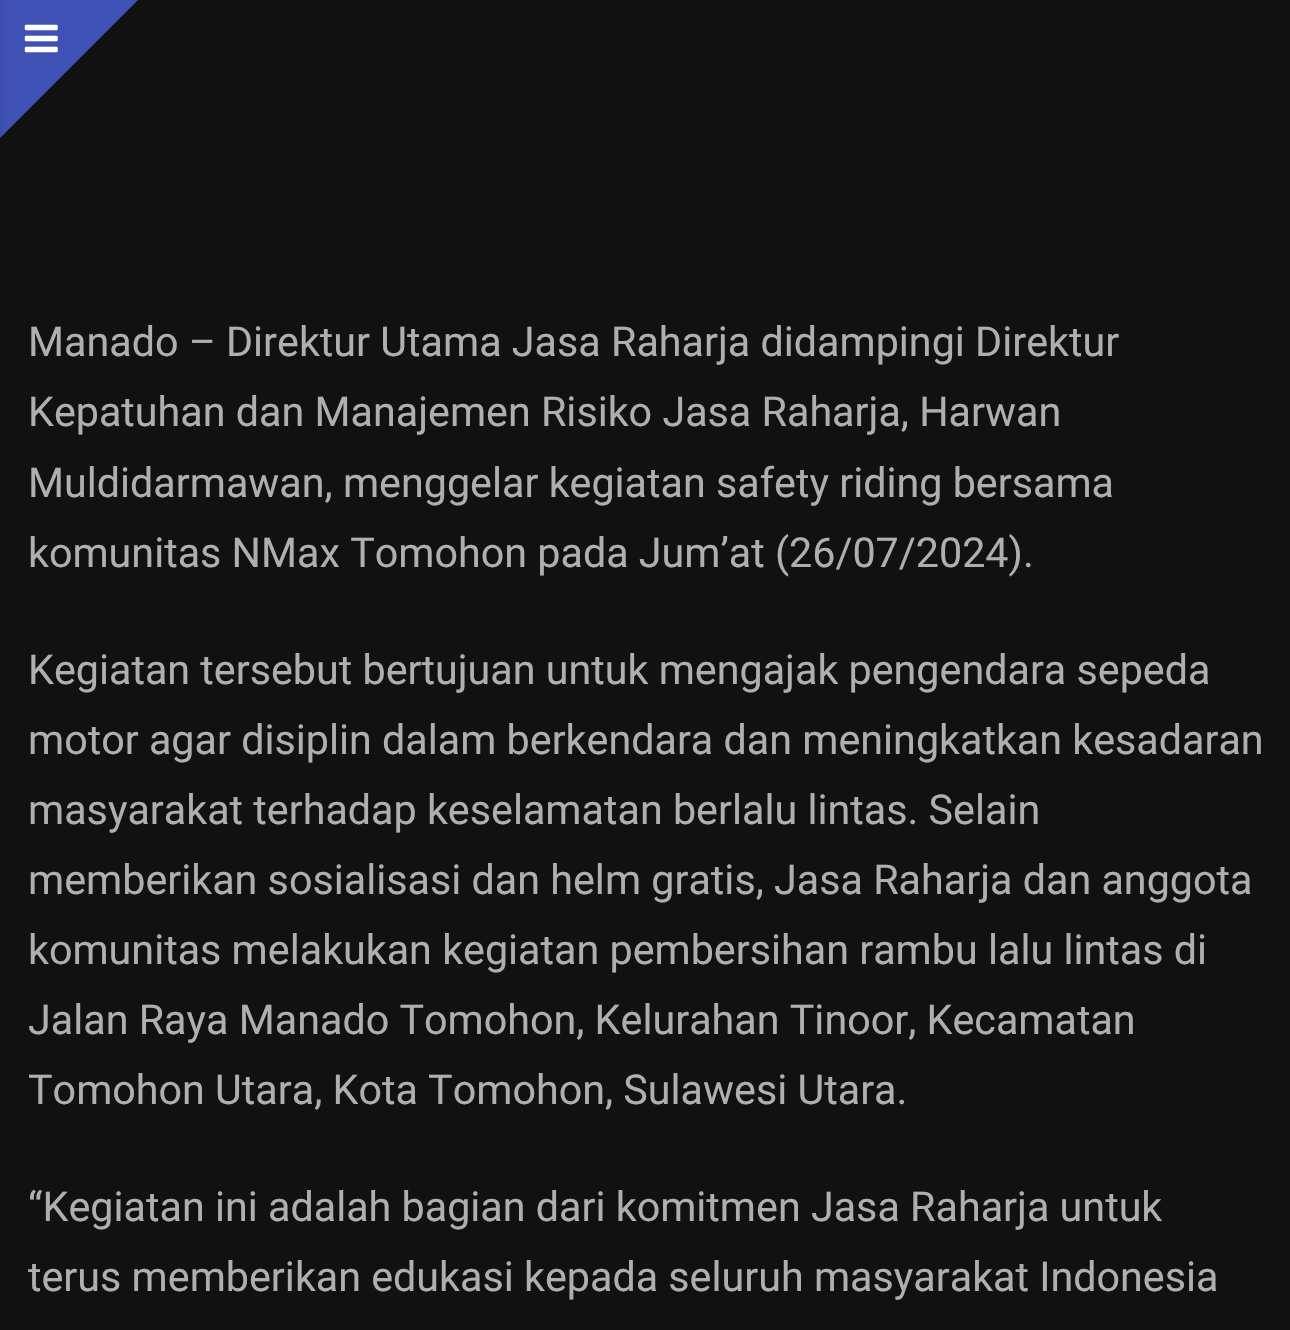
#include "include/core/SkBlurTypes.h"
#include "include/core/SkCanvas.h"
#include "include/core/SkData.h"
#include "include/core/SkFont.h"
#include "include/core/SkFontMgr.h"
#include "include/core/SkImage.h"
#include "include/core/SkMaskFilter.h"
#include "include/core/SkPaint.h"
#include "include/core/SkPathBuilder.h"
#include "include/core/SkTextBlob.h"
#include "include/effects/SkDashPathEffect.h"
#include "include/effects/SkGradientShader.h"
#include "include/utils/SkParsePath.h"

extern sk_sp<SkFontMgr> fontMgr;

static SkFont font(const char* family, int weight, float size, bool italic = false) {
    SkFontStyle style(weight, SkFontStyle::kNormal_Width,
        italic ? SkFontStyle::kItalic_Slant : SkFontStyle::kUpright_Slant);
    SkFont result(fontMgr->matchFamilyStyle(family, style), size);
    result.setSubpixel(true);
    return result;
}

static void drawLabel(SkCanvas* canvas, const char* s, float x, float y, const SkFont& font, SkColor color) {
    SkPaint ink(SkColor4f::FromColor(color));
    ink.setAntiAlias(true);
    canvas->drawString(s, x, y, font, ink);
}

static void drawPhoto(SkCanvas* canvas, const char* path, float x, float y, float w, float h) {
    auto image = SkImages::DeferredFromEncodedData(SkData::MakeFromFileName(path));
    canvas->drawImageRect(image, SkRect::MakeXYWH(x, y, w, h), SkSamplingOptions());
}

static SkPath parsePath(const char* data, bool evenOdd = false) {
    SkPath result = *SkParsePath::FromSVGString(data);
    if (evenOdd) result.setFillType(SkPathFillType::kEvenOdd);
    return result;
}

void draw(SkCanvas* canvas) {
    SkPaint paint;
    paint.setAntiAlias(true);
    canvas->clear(0xFF111111);
    paint.setColor(0xFF3F51B5);
    canvas->drawPath(parsePath("M0 0H138L0 138Z"), paint);
    drawPhoto(canvas, "assets/img1.png", 24, 24, 34, 29);
    paint.setColor(0x26000000);
    paint.setMaskFilter(SkMaskFilter::MakeBlur(kNormal_SkBlurStyle, 3));
    canvas->drawRect(SkRect::MakeXYWH(-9, 0, 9, 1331), paint);
    paint.setMaskFilter(nullptr);
    SkFont font1 = font("Roboto", 400, 41.25f);
    drawLabel(canvas, "Manado – Direktur Utama Jasa Raharja didampingi Direktur", 28, 356, font1, 0xFFAFAFAF);
    drawLabel(canvas, "Kepatuhan dan Manajemen Risiko Jasa Raharja, Harwan", 28, 426, font1, 0xFFAFAFAF);
    drawLabel(canvas, "Muldidarmawan, menggelar kegiatan safety riding bersama", 28, 497, font1, 0xFFAFAFAF);
    drawLabel(canvas, "komunitas NMax Tomohon pada Jum’at (26/07/2024).", 28, 567, font1, 0xFFAFAFAF);
    drawLabel(canvas, "Kegiatan tersebut bertujuan untuk mengajak pengendara sepeda", 28, 684, font1, 0xFFAFAFAF);
    drawLabel(canvas, "motor agar disiplin dalam berkendara dan meningkatkan kesadaran", 28, 754, font1, 0xFFAFAFAF);
    drawLabel(canvas, "masyarakat terhadap keselamatan berlalu lintas. Selain", 28, 824, font1, 0xFFAFAFAF);
    drawLabel(canvas, "memberikan sosialisasi dan helm gratis, Jasa Raharja dan anggota", 28, 894, font1, 0xFFAFAFAF);
    drawLabel(canvas, "komunitas melakukan kegiatan pembersihan rambu lalu lintas di", 28, 964, font1, 0xFFAFAFAF);
    drawLabel(canvas, "Jalan Raya Manado Tomohon, Kelurahan Tinoor, Kecamatan", 28, 1034, font1, 0xFFAFAFAF);
    drawLabel(canvas, "Tomohon Utara, Kota Tomohon, Sulawesi Utara.", 28, 1104, font1, 0xFFAFAFAF);
    drawLabel(canvas, "“Kegiatan ini adalah bagian dari komitmen Jasa Raharja untuk", 28, 1221, font1, 0xFFAFAFAF);
    drawLabel(canvas, "terus memberikan edukasi kepada seluruh masyarakat Indonesia", 28, 1291, font1, 0xFFAFAFAF);
}
